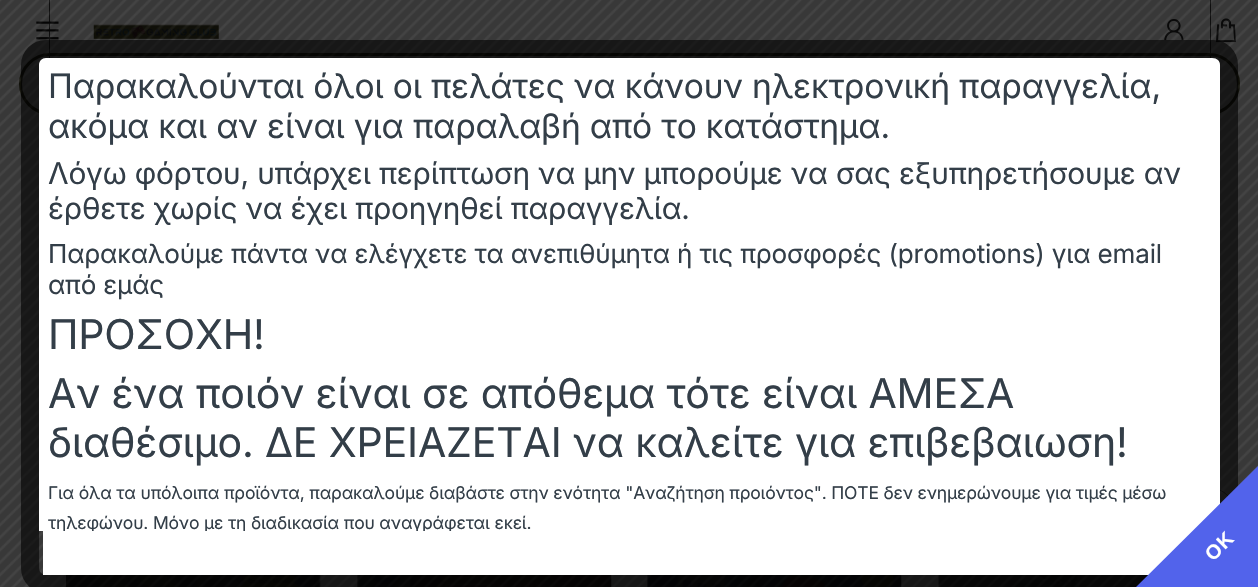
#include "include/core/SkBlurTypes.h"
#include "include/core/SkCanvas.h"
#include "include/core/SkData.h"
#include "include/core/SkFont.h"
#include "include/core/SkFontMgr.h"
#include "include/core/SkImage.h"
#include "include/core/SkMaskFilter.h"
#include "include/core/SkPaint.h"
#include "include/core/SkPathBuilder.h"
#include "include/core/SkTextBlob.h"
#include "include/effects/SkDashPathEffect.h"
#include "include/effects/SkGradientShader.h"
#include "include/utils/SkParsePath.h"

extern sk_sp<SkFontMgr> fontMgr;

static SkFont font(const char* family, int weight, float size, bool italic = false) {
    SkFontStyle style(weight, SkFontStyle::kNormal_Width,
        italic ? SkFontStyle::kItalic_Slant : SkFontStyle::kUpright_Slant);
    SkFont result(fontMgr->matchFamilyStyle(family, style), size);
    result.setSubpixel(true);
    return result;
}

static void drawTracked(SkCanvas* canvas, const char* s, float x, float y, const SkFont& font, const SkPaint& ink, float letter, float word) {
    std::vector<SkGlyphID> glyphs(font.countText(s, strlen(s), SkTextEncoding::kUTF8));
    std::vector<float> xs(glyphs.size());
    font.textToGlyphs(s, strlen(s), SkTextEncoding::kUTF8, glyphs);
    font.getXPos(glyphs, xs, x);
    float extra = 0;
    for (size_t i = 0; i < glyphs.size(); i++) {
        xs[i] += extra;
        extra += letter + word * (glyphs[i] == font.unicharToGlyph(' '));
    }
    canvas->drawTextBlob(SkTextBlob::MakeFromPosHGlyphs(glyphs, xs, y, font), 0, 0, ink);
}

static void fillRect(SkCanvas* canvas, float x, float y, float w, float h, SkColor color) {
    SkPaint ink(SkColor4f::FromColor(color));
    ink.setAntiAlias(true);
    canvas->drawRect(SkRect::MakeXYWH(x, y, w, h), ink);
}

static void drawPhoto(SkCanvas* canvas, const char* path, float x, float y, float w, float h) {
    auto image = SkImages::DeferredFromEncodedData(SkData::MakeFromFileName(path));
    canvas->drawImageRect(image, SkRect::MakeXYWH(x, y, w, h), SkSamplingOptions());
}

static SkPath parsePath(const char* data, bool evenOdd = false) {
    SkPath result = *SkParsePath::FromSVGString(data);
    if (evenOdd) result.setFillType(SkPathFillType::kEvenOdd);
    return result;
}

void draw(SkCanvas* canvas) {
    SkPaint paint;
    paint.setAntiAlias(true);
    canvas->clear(0xFFFFFFFF);
    paint.setStroke(true);
    paint.setStrokeWidth(1);
    paint.setColor(0xFF2C2C2C);
    canvas->drawRect(SkRect::MakeXYWH(49.5f, -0.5f, 1161, 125), paint);
    drawPhoto(canvas, "assets/img1.png", 66, 575, 255, 12);
    drawPhoto(canvas, "assets/img2.png", 357, 575, 255, 12);
    drawPhoto(canvas, "assets/img3.png", 647, 575, 255, 12);
    drawPhoto(canvas, "assets/img4.png", 938, 575, 211, 12);
    drawPhoto(canvas, "assets/img5.png", 36, 21, 23, 19);
    drawPhoto(canvas, "assets/img6.png", 93, 24, 126, 15);
    drawPhoto(canvas, "assets/img7.png", 1164, 19, 20, 22);
    drawPhoto(canvas, "assets/img8.png", 1215, 18, 21, 25);
    paint.setStrokeWidth(3);
    paint.setColor(0xFF32310B);
    canvas->drawRoundRect(SkRect::MakeXYWH(20.5f, 54.5f, 1218, 59), 29.5f, 29.5f, paint);
    paint.setStrokeWidth(1);
    paint.setColor(0x99161719);
    canvas->drawCircle(1211.5f, 510.5f, 22, paint);
    drawPhoto(canvas, "assets/img9.png", 0, 0, 1258, 587);
    paint.setStrokeWidth(18);
    paint.setColor(0x99000000);
    canvas->drawRoundRect(SkRect::MakeXYWH(30, 49, 1199, 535), 16, 16, paint);
    paint.setStroke(false);
    paint.setColor(0xFFFFFFFF);
    canvas->drawPath(parsePath("M46 58H1212C1217 58 1220 61 1220 65V531H39V65C39 61 42 58 46 58Z"), paint);
    fillRect(canvas, 43, 531, 1150, 44, 0xFFFFFFFF);
    SkFont font1 = font("Inter", 400, 33.55f);
    paint.setColor(0xFF333E48);
    drawTracked(canvas, "Παρακαλούνται όλοι οι πελάτες να κάνουν ηλεκτρονική παραγγελία,", 48, 98, font1, paint, -0.18f, 0);
    drawTracked(canvas, "ακόμα και αν είναι για παραλαβή από το κατάστημα.", 48, 138, font1, paint, -0.18f, 0);
    SkFont font2 = font("Inter", 400, 29.8f);
    drawTracked(canvas, "Λόγω φόρτου, υπάρχει περίπτωση να μην μπορούμε να σας εξυπηρετήσουμε αν", 48, 184, font2, paint, -0.18f, 0);
    drawTracked(canvas, "έρθετε χωρίς να έχει προηγηθεί παραγγελία.", 48, 219, font2, paint, -0.18f, 0);
    SkFont font3 = font("Inter", 400, 26.05f);
    drawTracked(canvas, "Παρακαλούμε πάντα να ελέγχετε τα ανεπιθύμητα ή τις προσφορές (promotions) για email", 48, 263, font3, paint, -0.18f, 0);
    drawTracked(canvas, "από εμάς", 48, 294, font3, paint, -0.18f, 0);
    SkFont font4 = font("Inter", 400, 41.05f);
    drawTracked(canvas, "ΠΡΟΣΟΧΗ!", 48, 349, font4, paint, -0.18f, 0);
    drawTracked(canvas, "Αν ένα ποιόν είναι σε απόθεμα τότε είναι ΑΜΕΣΑ", 48, 408, font4, paint, -0.18f, 0);
    drawTracked(canvas, "διαθέσιμο. ΔΕ ΧΡΕΙΑΖΕΤΑΙ να καλείτε για επιβεβαιωση!", 48, 457, font4, paint, -0.18f, 0);
    SkFont font5 = font("Inter", 400, 17.5f);
    drawTracked(canvas, "Για όλα τα υπόλοιπα προϊόντα, παρακαλούμε διαβάστε στην ενότητα \"Αναζήτηση προιόντος\". ΠΟΤΕ δεν ενημερώνουμε για τιμές μέσω", 48, 499, font5, paint, -0.18f, 0);
    canvas->save();
    canvas->clipPath(parsePath("M46 57.5H1212.5C1216.5 57.5 1220 61 1220 65V531H39V65C39 61 42 57.5 46 57.5Z"), true);
    drawTracked(canvas, "τηλεφώνου. Μόνο με τη διαδικασία που αναγράφεται εκεί.", 48, 529, font5, paint, -0.18f, 0);
    canvas->restore();
    paint.setColor(0xFF5263EB);
    canvas->drawPath(parsePath("M1132 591L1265 459C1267 456 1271 456 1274 459L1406 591C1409 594 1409 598 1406 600L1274 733C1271 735 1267 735 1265 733L1132 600C1130 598 1130 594 1132 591Z"), paint);
    SkFont font6 = font("Liberation Sans", 700, 20);
    paint.setColor(0xFFFFFFFF);
    canvas->save();
    canvas->rotate(-45, 1213, 562);
    drawTracked(canvas, "ΟΚ", 1213, 562, font6, paint, 1, 0);
    canvas->restore();
}
